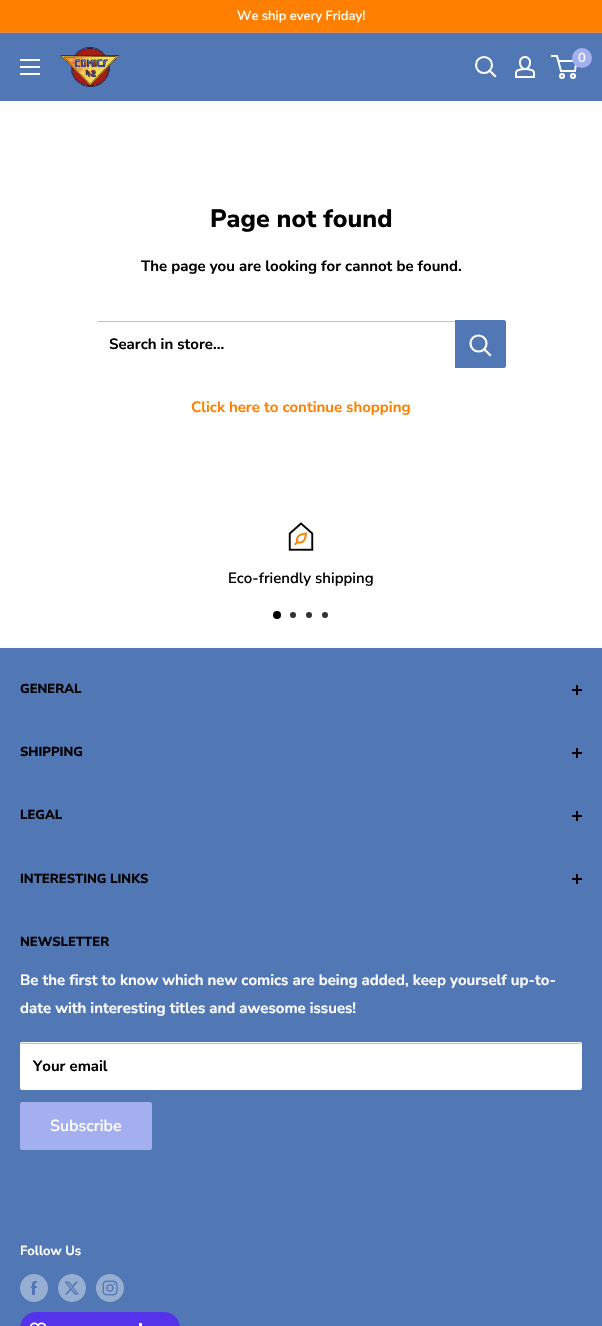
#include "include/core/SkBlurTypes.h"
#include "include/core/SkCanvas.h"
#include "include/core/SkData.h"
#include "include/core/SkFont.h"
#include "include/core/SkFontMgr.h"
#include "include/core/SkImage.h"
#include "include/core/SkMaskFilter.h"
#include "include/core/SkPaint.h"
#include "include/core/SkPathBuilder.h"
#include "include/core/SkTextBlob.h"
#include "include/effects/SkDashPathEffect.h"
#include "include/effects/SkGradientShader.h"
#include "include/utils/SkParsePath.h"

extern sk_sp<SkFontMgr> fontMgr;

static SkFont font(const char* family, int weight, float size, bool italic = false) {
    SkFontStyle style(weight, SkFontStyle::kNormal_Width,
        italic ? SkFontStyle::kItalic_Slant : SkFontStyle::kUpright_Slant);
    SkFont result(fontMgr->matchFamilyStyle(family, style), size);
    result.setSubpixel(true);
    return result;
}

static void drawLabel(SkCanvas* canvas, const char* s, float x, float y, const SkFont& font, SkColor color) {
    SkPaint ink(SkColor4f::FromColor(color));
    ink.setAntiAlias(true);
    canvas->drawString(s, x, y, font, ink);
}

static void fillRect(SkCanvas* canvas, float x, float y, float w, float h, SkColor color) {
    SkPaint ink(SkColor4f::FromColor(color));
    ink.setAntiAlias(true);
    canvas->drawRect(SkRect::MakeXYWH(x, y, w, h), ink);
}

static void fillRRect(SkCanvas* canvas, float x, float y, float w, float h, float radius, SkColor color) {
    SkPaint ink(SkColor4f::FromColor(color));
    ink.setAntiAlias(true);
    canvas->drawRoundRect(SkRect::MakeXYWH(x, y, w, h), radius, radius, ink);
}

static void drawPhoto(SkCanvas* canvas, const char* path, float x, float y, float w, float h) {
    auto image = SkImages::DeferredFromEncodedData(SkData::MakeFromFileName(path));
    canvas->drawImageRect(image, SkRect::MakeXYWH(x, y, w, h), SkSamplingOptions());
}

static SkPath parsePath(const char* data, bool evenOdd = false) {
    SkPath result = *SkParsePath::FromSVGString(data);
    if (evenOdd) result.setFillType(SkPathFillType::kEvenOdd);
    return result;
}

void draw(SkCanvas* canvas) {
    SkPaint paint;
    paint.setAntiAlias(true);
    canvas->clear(0xFFFFFFFF);
    fillRect(canvas, 0, 0, 602, 32, 0xFFFF8000);
    fillRect(canvas, 0, 32, 602, 1, 0xFFE38E48);
    SkFont font1 = font("Nunito Sans", 600, 13);
    drawLabel(canvas, "We ship every Friday!", 237, 20, font1, 0xFFFFFFFF);
    fillRect(canvas, 0, 33, 602, 68, 0xFF5177B5);
    drawPhoto(canvas, "assets/img1.png", 60, 46, 60, 42);
    paint.setStroke(true);
    paint.setStrokeWidth(2.1f);
    paint.setStrokeCap(SkPaint::kSquare_Cap);
    paint.setColor(0xFFFFFFFF);
    canvas->drawPath(parsePath("M495 76L489.5 70.5"), paint);
    paint.setStrokeCap(SkPaint::kButt_Cap);
    canvas->drawCircle(484, 65, 8, paint);
    drawPhoto(canvas, "assets/img2.png", 515, 56, 20, 22);
    paint.setStrokeWidth(2);
    canvas->drawCircle(562, 76, 2, paint);
    canvas->drawCircle(573, 76, 2, paint);
    canvas->drawPath(parsePath("M558.5 61H576.5L575 71H561L557 56H551"), paint);
    paint.setStroke(false);
    paint.setColor(0xFFA3AFEF);
    canvas->drawCircle(582, 58, 10, paint);
    drawLabel(canvas, "0", 578, 62, font1, 0xFFFFFFFF);
    drawPhoto(canvas, "assets/img3.png", 20, 59, 20, 16);
    SkFont font2 = font("Nunito Sans", 800, 25);
    drawLabel(canvas, "Page not found", 210, 227, font2, 0xFF000000);
    SkFont font3 = font("Nunito Sans", 700, 15);
    drawLabel(canvas, "The page you are looking for cannot be found.", 141, 271, font3, 0xFF000000);
    paint.setColor(0xFFBFBFBF);
    canvas->drawPath(parsePath("M98 322H455V321H98C97 321 97 322 97 323C97 322 97 322 98 322Z"), paint);
    drawLabel(canvas, "Search in store...", 109, 349, font3, 0xFF000000);
    paint.setColor(0xFF5177B5);
    canvas->drawPath(parsePath("M455 320H504C505 320 506 321 506 322V366C506 367 505 368 504 368H455Z"), paint);
    paint.setStroke(true);
    paint.setStrokeWidth(2.2f);
    paint.setStrokeCap(SkPaint::kSquare_Cap);
    paint.setColor(0xFFFFFFFF);
    canvas->drawPath(parsePath("M490 355L484.5 349.5"), paint);
    paint.setStrokeCap(SkPaint::kButt_Cap);
    canvas->drawCircle(478.5f, 343.5f, 8, paint);
    drawLabel(canvas, "Click here to continue shopping", 191, 412, font3, 0xFFFF8000);
    drawPhoto(canvas, "assets/img4.png", 288, 522, 26, 29);
    SkFont font4 = font("Nunito Sans", 600, 15);
    drawLabel(canvas, "Eco-friendly shipping", 228, 583, font4, 0xFF000000);
    paint.setStroke(false);
    paint.setColor(0xFF000000);
    canvas->drawCircle(277, 615, 4, paint);
    paint.setColor(0xFF333333);
    canvas->drawCircle(293, 615, 3, paint);
    canvas->drawCircle(309, 615, 3, paint);
    canvas->drawCircle(325, 615, 3, paint);
    fillRect(canvas, 0, 648, 602, 678, 0xFF5177B5);
    SkFont font5 = font("Nunito Sans", 800, 13);
    drawLabel(canvas, "GENERAL", 20, 693, font5, 0xFF000000);
    fillRect(canvas, 576, 685, 2, 10, 0xFF000000);
    fillRect(canvas, 572, 689, 10, 2, 0xFF000000);
    drawLabel(canvas, "SHIPPING", 20, 756, font5, 0xFF000000);
    fillRect(canvas, 576, 748, 2, 10, 0xFF000000);
    fillRect(canvas, 572, 752, 10, 2, 0xFF000000);
    drawLabel(canvas, "LEGAL", 20, 819, font5, 0xFF000000);
    fillRect(canvas, 576, 811, 2, 10, 0xFF000000);
    fillRect(canvas, 572, 815, 10, 2, 0xFF000000);
    drawLabel(canvas, "INTERESTING LINKS", 20, 883, font5, 0xFF000000);
    fillRect(canvas, 576, 874, 2, 10, 0xFF000000);
    fillRect(canvas, 572, 878, 10, 2, 0xFF000000);
    drawLabel(canvas, "NEWSLETTER", 20, 946, font5, 0xFF000000);
    drawLabel(canvas, "Be the first to know which new comics are being added, keep yourself up-to-", 20, 985, font3, 0xFFFFFFFF);
    drawLabel(canvas, "date with interesting titles and awesome issues!", 20, 1013, font3, 0xFFFFFFFF);
    fillRRect(canvas, 20, 1042, 562, 48, 2, 0xFFFFFFFF);
    paint.setColor(0xFFBFBFBF);
    canvas->drawPath(parsePath("M22 1044H580L581 1045V1044L580 1043H22H21V1045Z"), paint);
    drawLabel(canvas, "Your email", 33, 1071, font3, 0xFF000000);
    fillRRect(canvas, 20, 1102, 132, 48, 2, 0xFFA3AFEF);
    SkFont font6 = font("Nunito Sans", 600, 16);
    drawLabel(canvas, "Subscribe", 50, 1131, font6, 0xFFFFFFFF);
    SkFont font7 = font("Nunito Sans", 700, 13);
    drawLabel(canvas, "Follow Us", 20, 1255, font7, 0xFFFFFFFF);
    drawPhoto(canvas, "assets/img5.png", 20, 1274, 28, 28);
    drawPhoto(canvas, "assets/img6.png", 58, 1274, 28, 28);
    drawPhoto(canvas, "assets/img7.png", 96, 1274, 28, 28);
    fillRRect(canvas, 20, 1312, 160, 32, 18, 0xFF5433EB);
    drawPhoto(canvas, "assets/img8.png", 29, 1322, 18, 4);
    fillRect(canvas, 139, 1323, 3, 3, 0xFFFFFFFF);
}
